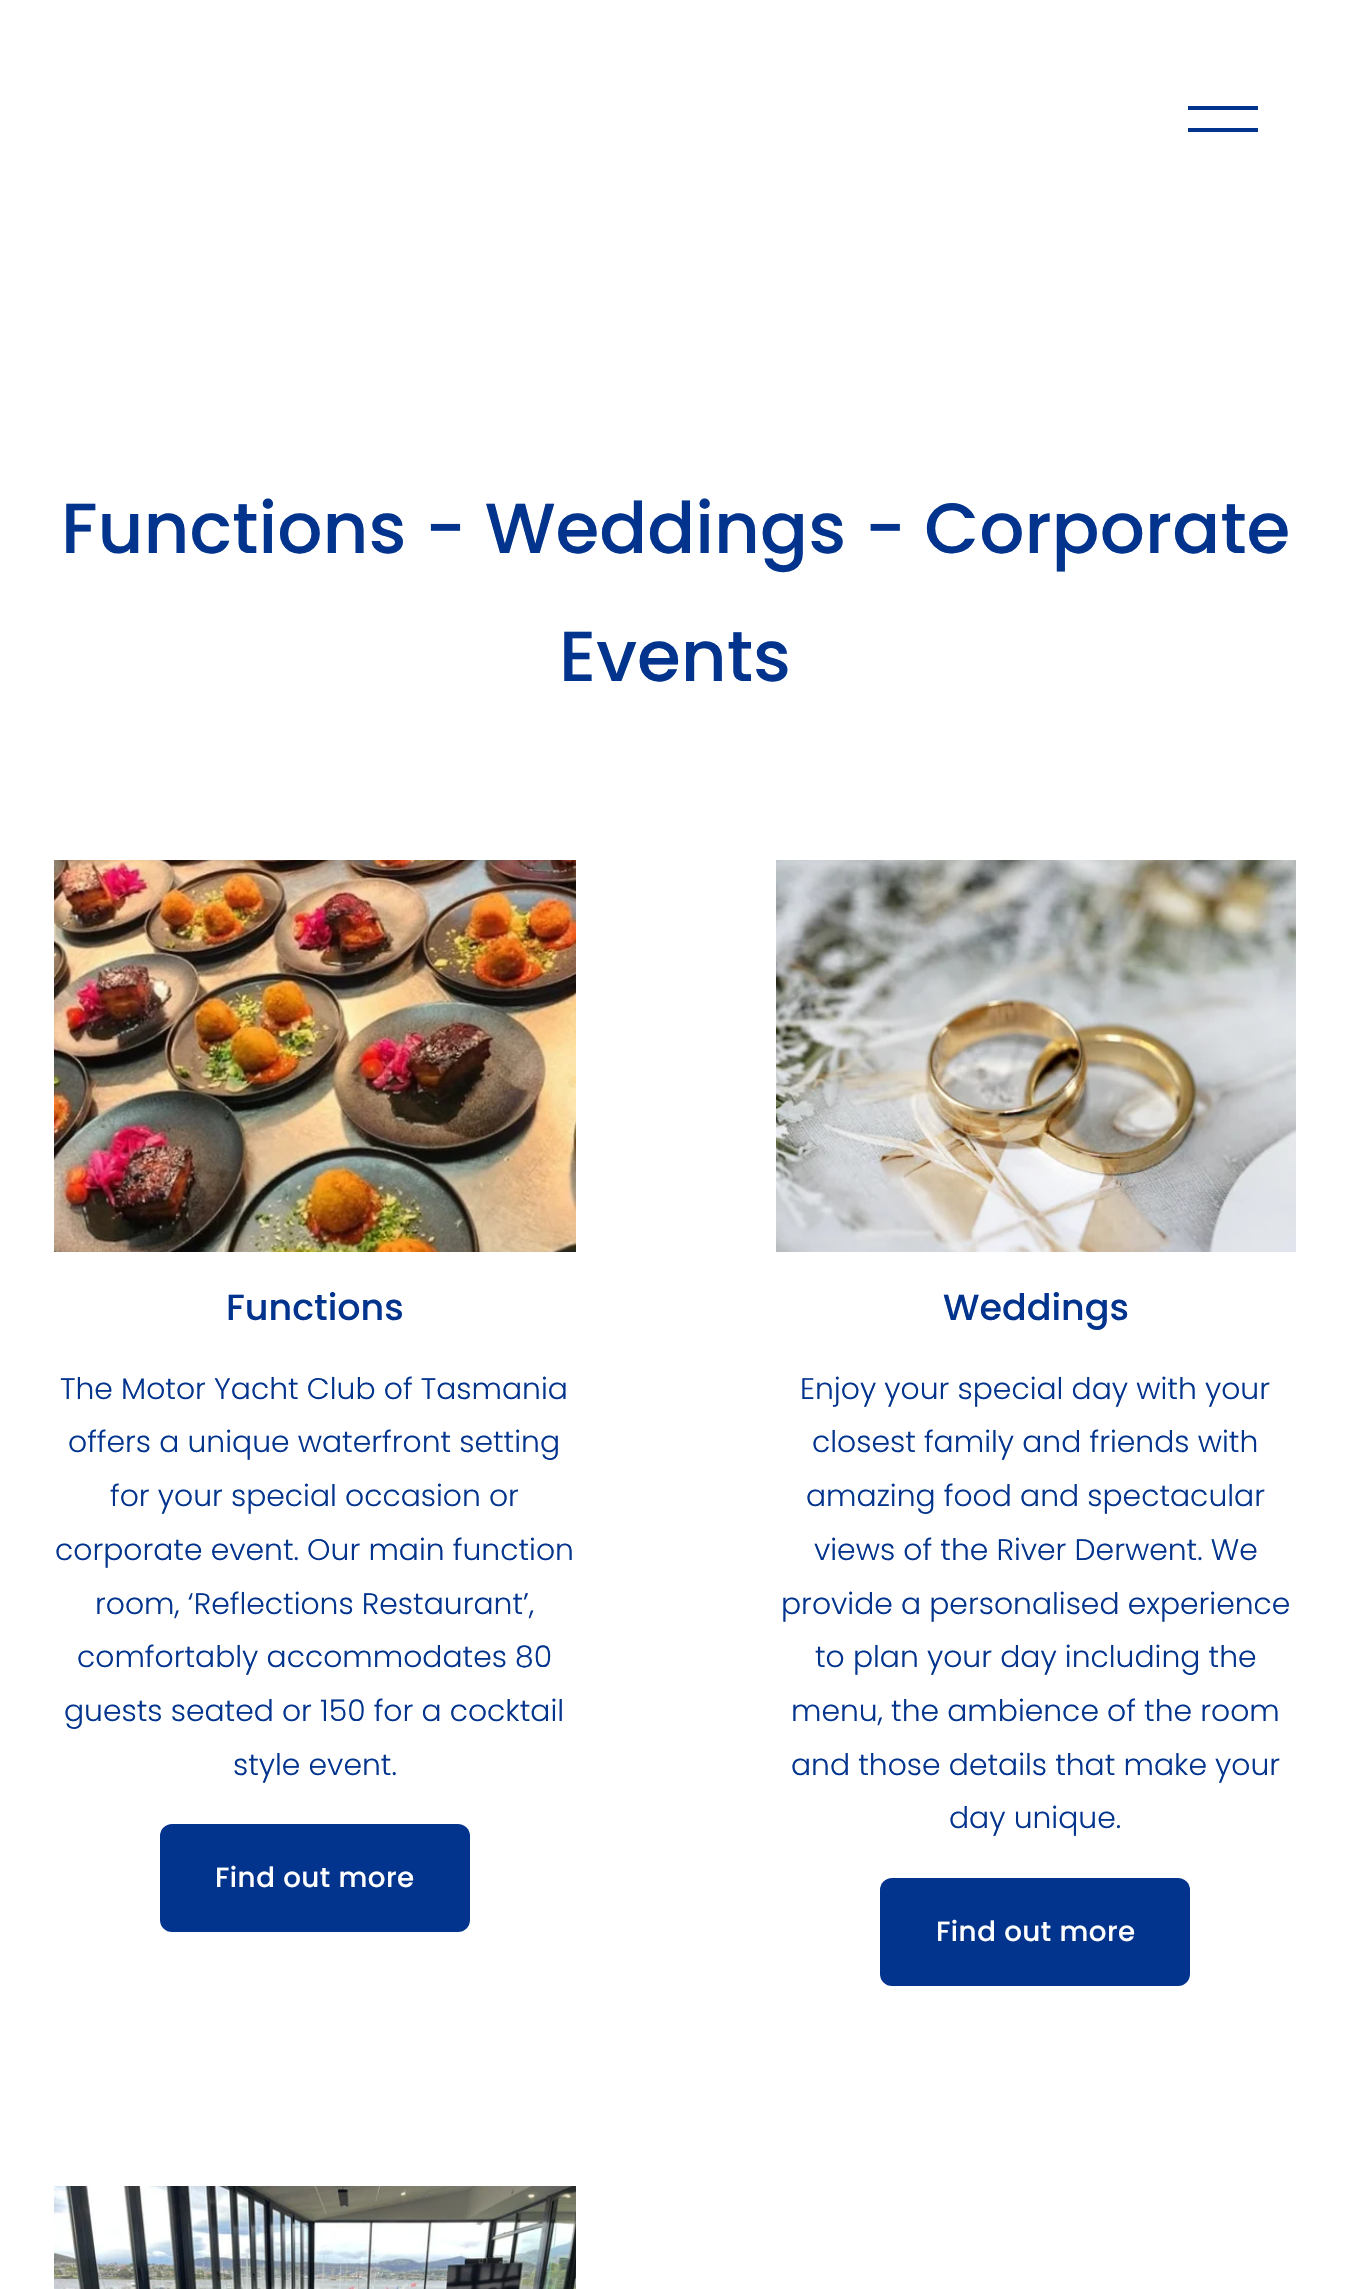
#include "include/core/SkBlurTypes.h"
#include "include/core/SkCanvas.h"
#include "include/core/SkData.h"
#include "include/core/SkFont.h"
#include "include/core/SkFontMgr.h"
#include "include/core/SkImage.h"
#include "include/core/SkMaskFilter.h"
#include "include/core/SkPaint.h"
#include "include/core/SkPathBuilder.h"
#include "include/core/SkTextBlob.h"
#include "include/effects/SkDashPathEffect.h"
#include "include/effects/SkGradientShader.h"
#include "include/utils/SkParsePath.h"

extern sk_sp<SkFontMgr> fontMgr;

static SkFont font(const char* family, int weight, float size, bool italic = false) {
    SkFontStyle style(weight, SkFontStyle::kNormal_Width,
        italic ? SkFontStyle::kItalic_Slant : SkFontStyle::kUpright_Slant);
    SkFont result(fontMgr->matchFamilyStyle(family, style), size);
    result.setSubpixel(true);
    return result;
}

static void drawLabel(SkCanvas* canvas, const char* s, float x, float y, const SkFont& font, SkColor color) {
    SkPaint ink(SkColor4f::FromColor(color));
    ink.setAntiAlias(true);
    canvas->drawString(s, x, y, font, ink);
}

static void drawTracked(SkCanvas* canvas, const char* s, float x, float y, const SkFont& font, const SkPaint& ink, float letter, float word) {
    std::vector<SkGlyphID> glyphs(font.countText(s, strlen(s), SkTextEncoding::kUTF8));
    std::vector<float> xs(glyphs.size());
    font.textToGlyphs(s, strlen(s), SkTextEncoding::kUTF8, glyphs);
    font.getXPos(glyphs, xs, x);
    float extra = 0;
    for (size_t i = 0; i < glyphs.size(); i++) {
        xs[i] += extra;
        extra += letter + word * (glyphs[i] == font.unicharToGlyph(' '));
    }
    canvas->drawTextBlob(SkTextBlob::MakeFromPosHGlyphs(glyphs, xs, y, font), 0, 0, ink);
}

static void fillRect(SkCanvas* canvas, float x, float y, float w, float h, SkColor color) {
    SkPaint ink(SkColor4f::FromColor(color));
    ink.setAntiAlias(true);
    canvas->drawRect(SkRect::MakeXYWH(x, y, w, h), ink);
}

static void fillRRect(SkCanvas* canvas, float x, float y, float w, float h, float radius, SkColor color) {
    SkPaint ink(SkColor4f::FromColor(color));
    ink.setAntiAlias(true);
    canvas->drawRoundRect(SkRect::MakeXYWH(x, y, w, h), radius, radius, ink);
}

static void drawPhoto(SkCanvas* canvas, const char* path, float x, float y, float w, float h) {
    auto image = SkImages::DeferredFromEncodedData(SkData::MakeFromFileName(path));
    canvas->drawImageRect(image, SkRect::MakeXYWH(x, y, w, h), SkSamplingOptions());
}

void draw(SkCanvas* canvas) {
    SkPaint paint;
    paint.setAntiAlias(true);
    canvas->clear(0xFFFFFFFF);
    fillRect(canvas, 1188, 106, 70, 4, 0xFF02348D);
    fillRect(canvas, 1188, 128, 70, 4, 0xFF02348D);
    SkFont font1 = font("Poppins", 500, 70.9f);
    drawLabel(canvas, "Functions - Weddings - Corporate", 61, 553, font1, 0xFF02348D);
    drawLabel(canvas, "Events", 559, 681, font1, 0xFF02348D);
    drawPhoto(canvas, "assets/img1.png", 54, 860, 522, 392);
    SkFont font2 = font("Poppins", 500, 36.5f);
    drawLabel(canvas, "Functions", 226, 1320, font2, 0xFF02348D);
    SkFont font3 = font("Poppins", 300, 29.8f);
    drawLabel(canvas, "The Motor Yacht Club of Tasmania", 60, 1399, font3, 0xFF02348D);
    drawLabel(canvas, "offers a unique waterfront setting", 68, 1452, font3, 0xFF02348D);
    drawLabel(canvas, "for your special occasion or", 110, 1506, font3, 0xFF02348D);
    drawLabel(canvas, "corporate event. Our main function", 55, 1560, font3, 0xFF02348D);
    drawLabel(canvas, "room, ‘Reflections Restaurant’,", 95, 1614, font3, 0xFF02348D);
    drawLabel(canvas, "comfortably accommodates 80", 77, 1667, font3, 0xFF02348D);
    drawLabel(canvas, "guests seated or 150 for a cocktail", 64, 1721, font3, 0xFF02348D);
    drawLabel(canvas, "style event.", 233, 1775, font3, 0xFF02348D);
    fillRRect(canvas, 160, 1824, 310, 108, 12, 0xFF02348D);
    SkFont font4 = font("Poppins", 500, 27.75f);
    paint.setColor(0xFFFFFFFF);
    drawTracked(canvas, "Find out more", 215, 1887, font4, paint, 0.5f, 0);
    drawPhoto(canvas, "assets/img2.png", 776, 860, 520, 392);
    drawLabel(canvas, "Weddings", 943, 1320, font2, 0xFF02348D);
    drawLabel(canvas, "Enjoy your special day with your", 800, 1399, font3, 0xFF02348D);
    drawLabel(canvas, "closest family and friends with", 812, 1452, font3, 0xFF02348D);
    drawLabel(canvas, "amazing food and spectacular", 806, 1506, font3, 0xFF02348D);
    drawLabel(canvas, "views of the River Derwent. We", 814, 1560, font3, 0xFF02348D);
    drawLabel(canvas, "provide a personalised experience", 781, 1614, font3, 0xFF02348D);
    drawLabel(canvas, "to plan your day including the", 815, 1667, font3, 0xFF02348D);
    drawLabel(canvas, "menu, the ambience of the room", 791, 1721, font3, 0xFF02348D);
    drawLabel(canvas, "and those details that make your", 791, 1775, font3, 0xFF02348D);
    drawLabel(canvas, "day unique.", 949, 1828, font3, 0xFF02348D);
    fillRRect(canvas, 880, 1878, 310, 108, 12, 0xFF02348D);
    drawTracked(canvas, "Find out more", 936, 1941, font4, paint, 0.5f, 0);
    drawPhoto(canvas, "assets/img3.png", 54, 2186, 522, 103);
}
